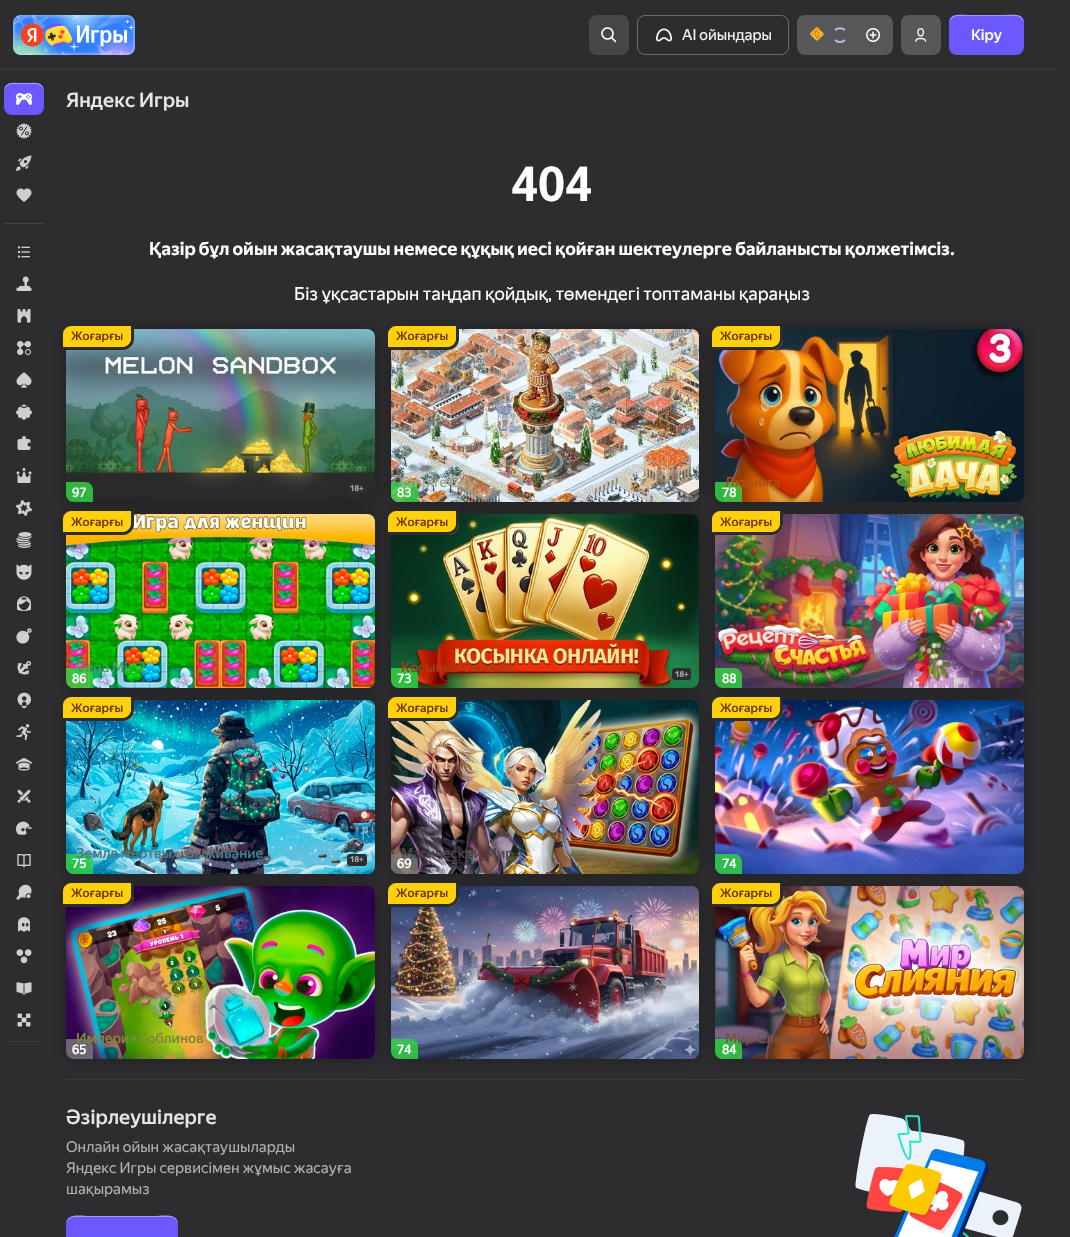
#include "include/core/SkBlurTypes.h"
#include "include/core/SkCanvas.h"
#include "include/core/SkData.h"
#include "include/core/SkFont.h"
#include "include/core/SkFontMgr.h"
#include "include/core/SkImage.h"
#include "include/core/SkMaskFilter.h"
#include "include/core/SkPaint.h"
#include "include/core/SkPathBuilder.h"
#include "include/core/SkTextBlob.h"
#include "include/effects/SkDashPathEffect.h"
#include "include/effects/SkGradientShader.h"
#include "include/utils/SkParsePath.h"

extern sk_sp<SkFontMgr> fontMgr;

static SkFont font(const char* family, int weight, float size, bool italic = false) {
    SkFontStyle style(weight, SkFontStyle::kNormal_Width,
        italic ? SkFontStyle::kItalic_Slant : SkFontStyle::kUpright_Slant);
    SkFont result(fontMgr->matchFamilyStyle(family, style), size);
    result.setSubpixel(true);
    return result;
}

static void drawLabel(SkCanvas* canvas, const char* s, float x, float y, const SkFont& font, SkColor color) {
    SkPaint ink(SkColor4f::FromColor(color));
    ink.setAntiAlias(true);
    canvas->drawString(s, x, y, font, ink);
}

static void drawTracked(SkCanvas* canvas, const char* s, float x, float y, const SkFont& font, const SkPaint& ink, float letter, float word) {
    std::vector<SkGlyphID> glyphs(font.countText(s, strlen(s), SkTextEncoding::kUTF8));
    std::vector<float> xs(glyphs.size());
    font.textToGlyphs(s, strlen(s), SkTextEncoding::kUTF8, glyphs);
    font.getXPos(glyphs, xs, x);
    float extra = 0;
    for (size_t i = 0; i < glyphs.size(); i++) {
        xs[i] += extra;
        extra += letter + word * (glyphs[i] == font.unicharToGlyph(' '));
    }
    canvas->drawTextBlob(SkTextBlob::MakeFromPosHGlyphs(glyphs, xs, y, font), 0, 0, ink);
}

static void fillRect(SkCanvas* canvas, float x, float y, float w, float h, SkColor color) {
    SkPaint ink(SkColor4f::FromColor(color));
    ink.setAntiAlias(true);
    canvas->drawRect(SkRect::MakeXYWH(x, y, w, h), ink);
}

static void fillRRect(SkCanvas* canvas, float x, float y, float w, float h, float radius, SkColor color) {
    SkPaint ink(SkColor4f::FromColor(color));
    ink.setAntiAlias(true);
    canvas->drawRoundRect(SkRect::MakeXYWH(x, y, w, h), radius, radius, ink);
}

static void drawPhoto(SkCanvas* canvas, const char* path, float x, float y, float w, float h) {
    auto image = SkImages::DeferredFromEncodedData(SkData::MakeFromFileName(path));
    canvas->drawImageRect(image, SkRect::MakeXYWH(x, y, w, h), SkSamplingOptions());
}

static SkPath parsePath(const char* data, bool evenOdd = false) {
    SkPath result = *SkParsePath::FromSVGString(data);
    if (evenOdd) result.setFillType(SkPathFillType::kEvenOdd);
    return result;
}

void draw(SkCanvas* canvas) {
    SkPaint paint;
    paint.setAntiAlias(true);
    canvas->clear(0xFF2D2D2F);
    fillRect(canvas, 0, 69, 1060, 1, 0xFF3A3A3B);
    drawPhoto(canvas, "assets/img1.png", 13, 15, 122, 40);
    fillRRect(canvas, 589, 15, 40, 40, 8, 0xFF464648);
    drawPhoto(canvas, "assets/img2.png", 601, 27, 16, 16);
    paint.setStroke(true);
    paint.setStrokeWidth(1);
    paint.setColor(0xFF6A6B70);
    canvas->drawRoundRect(SkRect::MakeXYWH(637.5f, 15.5f, 151, 39), 7.5f, 7.5f, paint);
    drawPhoto(canvas, "assets/img3.png", 656, 28, 16, 14);
    SkFont font1 = font("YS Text", 400, 15);
    drawLabel(canvas, "AI ойындары", 682, 40, font1, 0xFFF5F5F6);
    fillRRect(canvas, 797, 15, 96, 40, 8, 0xFF575759);
    drawPhoto(canvas, "assets/img4.png", 809, 26, 16, 16);
    paint.setStrokeWidth(2);
    paint.setColor(0xFFBCB3FF);
    canvas->drawPath(parsePath("M835 30C837.5 27.5 842.5 27.5 845 30M845 40C842.5 42.5 837.5 42.5 835 40"), paint);
    drawPhoto(canvas, "assets/img5.png", 866, 28, 15, 14);
    fillRRect(canvas, 901, 15, 40, 40, 8, 0xFF575759);
    drawPhoto(canvas, "assets/img6.png", 915, 28, 12, 14);
    fillRRect(canvas, 949, 15, 75, 40, 8, 0xFF6B58FF);
    paint.setStroke(false);
    paint.setColor(0xFFA398FF);
    canvas->drawPath(parsePath("M957 16H1016C1020 16 1024 20 1024 24C1024 13 1014 15 1006 15H967C959 15 949 13 949 24C949 20 953 16 957 16Z"), paint);
    SkFont font2 = font("YS Text", 500, 15);
    drawLabel(canvas, "Кіру", 971, 40, font2, 0xFFFFFFFF);
    fillRRect(canvas, 4, 83, 40, 32, 8, 0xFF6B58FF);
    canvas->drawPath(parsePath("M12 84C8 84 4 88 4 92C4 80 16 83 24 83C32 83 44 80 44 92C44 88 40 84 36 84Z"), paint);
    drawPhoto(canvas, "assets/img7.png", 16, 93, 16, 12);
    drawPhoto(canvas, "assets/img8.png", 16, 123, 16, 16);
    drawPhoto(canvas, "assets/img9.png", 16, 155, 16, 16);
    drawPhoto(canvas, "assets/img10.png", 16, 188, 16, 14);
    fillRect(canvas, 4, 223, 40, 1, 0xFF424244);
    drawPhoto(canvas, "assets/img11.png", 18, 246, 12, 12);
    drawPhoto(canvas, "assets/img12.png", 16, 276, 16, 15);
    drawPhoto(canvas, "assets/img13.png", 17, 309, 14, 14);
    drawPhoto(canvas, "assets/img14.png", 17, 341, 14, 14);
    drawPhoto(canvas, "assets/img15.png", 16, 372, 16, 16);
    drawPhoto(canvas, "assets/img16.png", 16, 404, 16, 16);
    drawPhoto(canvas, "assets/img17.png", 17, 436, 14, 14);
    drawPhoto(canvas, "assets/img18.png", 16, 468, 16, 15);
    drawPhoto(canvas, "assets/img19.png", 16, 500, 16, 16);
    drawPhoto(canvas, "assets/img20.png", 16, 532, 16, 16);
    drawPhoto(canvas, "assets/img21.png", 16, 564, 16, 16);
    drawPhoto(canvas, "assets/img22.png", 17, 596, 14, 15);
    drawPhoto(canvas, "assets/img23.png", 16, 628, 16, 16);
    drawPhoto(canvas, "assets/img24.png", 17, 661, 14, 14);
    drawPhoto(canvas, "assets/img25.png", 17, 692, 14, 17);
    drawPhoto(canvas, "assets/img26.png", 16, 724, 15, 16);
    drawPhoto(canvas, "assets/img27.png", 16, 758, 16, 13);
    drawPhoto(canvas, "assets/img28.png", 17, 789, 14, 14);
    drawPhoto(canvas, "assets/img29.png", 16, 821, 16, 14);
    drawPhoto(canvas, "assets/img30.png", 17, 854, 14, 14);
    drawPhoto(canvas, "assets/img31.png", 16, 884, 16, 16);
    drawPhoto(canvas, "assets/img32.png", 18, 917, 12, 15);
    drawPhoto(canvas, "assets/img33.png", 16, 949, 16, 15);
    drawPhoto(canvas, "assets/img34.png", 16, 982, 16, 13);
    drawPhoto(canvas, "assets/img35.png", 17, 1013, 14, 14);
    paint.setColor(0x4D000000);
    paint.setMaskFilter(SkMaskFilter::MakeBlur(kNormal_SkBlurStyle, 8));
    canvas->drawRoundRect(SkRect::MakeXYWH(66, 329, 309, 173), 8, 8, paint);
    paint.setMaskFilter(nullptr);
    fillRRect(canvas, 66, 329, 309, 173, 8, 0xFF282828);
    drawPhoto(canvas, "assets/img36.png", 66, 329, 309, 169);
    paint.setColor(0xD933D043);
    canvas->drawPath(parsePath("M66 482H85C89.5 482 93 485.5 93 490V502H74C69.5 502 66 498.5 66 494Z"), paint);
    fillRRect(canvas, 347, 482, 20, 12, 3, 0xFF2D2D2F);
    paint.setColor(0x4D000000);
    paint.setMaskFilter(SkMaskFilter::MakeBlur(kNormal_SkBlurStyle, 8));
    canvas->drawRoundRect(SkRect::MakeXYWH(391, 329, 308, 173), 8, 8, paint);
    paint.setMaskFilter(nullptr);
    fillRRect(canvas, 391, 329, 308, 173, 8, 0xFFE8F0F8);
    drawPhoto(canvas, "assets/img37.png", 391, 329, 308, 173);
    paint.setColor(0xD933D043);
    canvas->drawPath(parsePath("M391 482H410C414.5 482 418 485.5 418 490V502H399C394.5 502 391 498.5 391 494Z"), paint);
    paint.setColor(0x4D000000);
    paint.setMaskFilter(SkMaskFilter::MakeBlur(kNormal_SkBlurStyle, 8));
    canvas->drawRoundRect(SkRect::MakeXYWH(66, 514, 309, 174), 8, 8, paint);
    paint.setMaskFilter(nullptr);
    paint.setMaskFilter(SkMaskFilter::MakeBlur(kNormal_SkBlurStyle, 8));
    canvas->drawRoundRect(SkRect::MakeXYWH(715, 329, 309, 173), 8, 8, paint);
    paint.setMaskFilter(nullptr);
    fillRRect(canvas, 715, 329, 309, 173, 8, 0xFF102030);
    drawPhoto(canvas, "assets/img38.png", 715, 329, 309, 173);
    paint.setColor(0xD933D043);
    canvas->drawPath(parsePath("M715 482H734C738.5 482 742 485.5 742 490V502H723C718.5 502 715 498.5 715 494Z"), paint);
    fillRRect(canvas, 66, 514, 309, 174, 8, 0xFF08B808);
    drawPhoto(canvas, "assets/img39.png", 66, 514, 309, 174);
    paint.setColor(0x4D000000);
    paint.setMaskFilter(SkMaskFilter::MakeBlur(kNormal_SkBlurStyle, 8));
    canvas->drawRoundRect(SkRect::MakeXYWH(391, 514, 308, 174), 8, 8, paint);
    paint.setMaskFilter(nullptr);
    paint.setColor(0xD933D043);
    canvas->drawPath(parsePath("M66 668H85C89.5 668 93 671.5 93 676V688H74C69.5 688 66 684.5 66 680Z"), paint);
    fillRRect(canvas, 391, 514, 308, 174, 8, 0xFF083820);
    drawPhoto(canvas, "assets/img40.png", 391, 514, 308, 174);
    canvas->drawPath(parsePath("M391 668H410C414.5 668 418 671.5 418 676V688H399C394.5 688 391 684.5 391 680Z"), paint);
    paint.setColor(0x4D000000);
    paint.setMaskFilter(SkMaskFilter::MakeBlur(kNormal_SkBlurStyle, 8));
    canvas->drawRoundRect(SkRect::MakeXYWH(66, 700, 309, 174), 8, 8, paint);
    paint.setMaskFilter(nullptr);
    fillRRect(canvas, 66, 700, 309, 174, 8, 0xFF10C0E0);
    drawPhoto(canvas, "assets/img42.png", 66, 700, 309, 174);
    fillRRect(canvas, 347, 854, 20, 12, 3, 0xFF2D2D2F);
    paint.setColor(0xD933D043);
    canvas->drawPath(parsePath("M66 854H85C89.5 854 93 857.5 93 862V874H74C69.5 874 66 870.5 66 866Z"), paint);
    fillRRect(canvas, 672, 668, 19, 12, 3, 0xFF2D2D2F);
    paint.setColor(0x4D000000);
    paint.setMaskFilter(SkMaskFilter::MakeBlur(kNormal_SkBlurStyle, 8));
    canvas->drawRoundRect(SkRect::MakeXYWH(715, 514, 309, 174), 8, 8, paint);
    paint.setMaskFilter(nullptr);
    fillRRect(canvas, 715, 514, 309, 174, 8, 0xFF504060);
    drawPhoto(canvas, "assets/img41.png", 715, 514, 309, 174);
    paint.setColor(0xD933D043);
    canvas->drawPath(parsePath("M715 668H734C738.5 668 742 671.5 742 676V688H723C718.5 688 715 684.5 715 680Z"), paint);
    paint.setColor(0x4D000000);
    paint.setMaskFilter(SkMaskFilter::MakeBlur(kNormal_SkBlurStyle, 8));
    canvas->drawRoundRect(SkRect::MakeXYWH(391, 700, 308, 174), 8, 8, paint);
    paint.setMaskFilter(nullptr);
    fillRRect(canvas, 391, 700, 308, 174, 8, 0xFF103030);
    drawPhoto(canvas, "assets/img43.png", 391, 700, 308, 174);
    paint.setColor(0xD9777777);
    canvas->drawPath(parsePath("M391 854H410C414.5 854 418 857.5 418 862V874H399C394.5 874 391 870.5 391 866Z"), paint);
    fillRect(canvas, 66, 1079, 958, 1, 0xFF3B3B3E);
    paint.setColor(0x4D000000);
    paint.setMaskFilter(SkMaskFilter::MakeBlur(kNormal_SkBlurStyle, 8));
    canvas->drawRoundRect(SkRect::MakeXYWH(66, 886, 309, 173), 8, 8, paint);
    paint.setMaskFilter(nullptr);
    fillRect(canvas, 8, 1041, 34, 1, 0xFF3A3A3B);
    SkFont font3 = font("YS Text", 500, 20);
    drawLabel(canvas, "Яндекс Игры", 66, 107, font3, 0xFFE6E6E7);
    SkFont font4 = font("YS Text", 700, 48);
    drawLabel(canvas, "404", 511, 201, font4, 0xFFFFFFFF);
    SkFont font5 = font("YS Text", 700, 18);
    paint.setColor(0xFFFFFFFF);
    drawTracked(canvas, "Қазір бұл ойын жасақтаушы немесе құқық иесі қойған шектеулерге байланысты қолжетімсіз.", 149, 255, font5, paint, 0, -0.4f);
    SkFont font6 = font("YS Text", 400, 18);
    drawTracked(canvas, "Біз ұқсастарын таңдап қойдық, төмендегі топтаманы қараңыз", 294, 300, font6, paint, 0, -0.25f);
    paint.setColor(0xFFFFD00D);
    canvas->drawPath(parsePath("M71 326H134V339C134 345 129 350 123 350H63V334C63 329.5 66.5 326 71 326Z"), paint);
    paint.setColor(0xFF2D2D2F);
    canvas->drawPath(parsePath("M71 326H134V339C134 345 129 350 123 350H63V334C63 330 67 326 71 326ZM71 326H131V339C131 343 127 347 123 347H63C63 340 60 326 71 326Z", true), paint);
    SkFont font7 = font("YS Text", 500, 12);
    drawLabel(canvas, "Жоғарғы", 71, 340, font7, 0xFF733600);
    SkFont font8 = font("YS Text", 500, 13);
    drawLabel(canvas, "97", 72, 497, font8, 0xFFFFFFFF);
    SkFont font9 = font("YS Text", 700, 8);
    drawLabel(canvas, "18+", 350, 491, font9, 0xFFAEAFB2);
    paint.setColor(0xFFFFD00D);
    canvas->drawPath(parsePath("M396 326H459V339C459 345 454 350 448 350H388V334C388 329.5 391.5 326 396 326Z"), paint);
    paint.setColor(0xFF2D2D2F);
    canvas->drawPath(parsePath("M396 326H459V339C459 345 454 350 448 350H388V334C388 330 392 326 396 326ZM396 326H456V339C456 343 452 347 448 347H388C388 340 385 326 396 326Z", true), paint);
    drawLabel(canvas, "Жоғарғы", 396, 340, font7, 0xFF733600);
    SkFont font10 = font("YS Text", 500, 14);
    drawLabel(canvas, "Empire City", 401, 487, font10, 0xFFA9AB91);
    drawLabel(canvas, "83", 397, 497, font8, 0xFFFFFFFF);
    paint.setColor(0xFFFFD00D);
    canvas->drawPath(parsePath("M720 326H783V339C783 345 778 350 772 350H712V334C712 329.5 715.5 326 720 326Z"), paint);
    paint.setColor(0xFF2D2D2F);
    canvas->drawPath(parsePath("M720 326H783V339C783 345 778 350 772 350H712V334C712 330 716 326 720 326ZM720 326H780V339C780 343 776 347 772 347H712C712 340 709 326 720 326Z", true), paint);
    drawLabel(canvas, "Жоғарғы", 720, 340, font7, 0xFF733600);
    drawLabel(canvas, "Любима", 725, 487, font10, 0xFFB34F0E);
    drawLabel(canvas, "78", 722, 497, font8, 0xFFFFFFFF);
    paint.setColor(0xFFFFD00D);
    canvas->drawPath(parsePath("M71 511H134V524C134 530 129 535 123 535H63V519C63 514.5 66.5 511 71 511Z"), paint);
    paint.setColor(0xFF2D2D2F);
    canvas->drawPath(parsePath("M71 511H134V524C134 530 129 535 123 535H63V519C63 515 67 511 71 511ZM71 511H131V524C131 528 127 532 123 532H63C63 525 60 511 71 511Z", true), paint);
    drawLabel(canvas, "Жоғарғы", 71, 526, font7, 0xFF733600);
    drawLabel(canvas, "Vega Mix 2", 76, 672, font10, 0xFF419F56);
    drawLabel(canvas, "86", 72, 683, font8, 0xFFFFFFFF);
    paint.setColor(0xFFFFD00D);
    canvas->drawPath(parsePath("M396 511H459V524C459 530 454 535 448 535H388V519C388 514.5 391.5 511 396 511Z"), paint);
    paint.setColor(0xFF2D2D2F);
    canvas->drawPath(parsePath("M396 511H459V524C459 530 454 535 448 535H388V519C388 515 392 511 396 511ZM396 511H456V524C456 528 452 532 448 532H388C388 525 385 511 396 511Z", true), paint);
    drawLabel(canvas, "Жоғарғы", 396, 526, font7, 0xFF733600);
    drawLabel(canvas, "Косынка Онлайн!", 401, 672, font10, 0xFFAA3A12);
    drawLabel(canvas, "73", 397, 683, font8, 0xFFFFFFFF);
    drawLabel(canvas, "18+", 675, 677, font9, 0xFFAEAFB2);
    paint.setColor(0xFFFFD00D);
    canvas->drawPath(parsePath("M720 511H783V524C783 530 778 535 772 535H712V519C712 514.5 715.5 511 720 511Z"), paint);
    paint.setColor(0xFF2D2D2F);
    canvas->drawPath(parsePath("M720 511H783V524C783 530 778 535 772 535H712V519C712 515 716 511 720 511ZM720 511H780V524C780 528 776 532 772 532H712C712 525 709 511 720 511Z", true), paint);
    drawLabel(canvas, "Жоғарғы", 720, 526, font7, 0xFF733600);
    drawLabel(canvas, "т Счасть", 766, 672, font10, 0xFF7C3F3B);
    drawLabel(canvas, "88", 722, 683, font8, 0xFFFFFFFF);
    paint.setColor(0xFFFFD00D);
    canvas->drawPath(parsePath("M71 697H134V710C134 716 129 721 123 721H63V705C63 700.5 66.5 697 71 697Z"), paint);
    paint.setColor(0xFF2D2D2F);
    canvas->drawPath(parsePath("M71 697H134V710C134 716 129 721 123 721H63V705C63 701 67 697 71 697ZM71 697H131V710C131 714 127 718 123 718H63C63 711 60 697 71 697Z", true), paint);
    drawLabel(canvas, "Жоғарғы", 71, 712, font7, 0xFF733600);
    drawLabel(canvas, "Земля мёртвых. Выживание", 76, 858, font10, 0xFF4A7887);
    drawLabel(canvas, "18+", 350, 862, font9, 0xFFAEAFB2);
    drawLabel(canvas, "75", 72, 868, font8, 0xFFFFFFFF);
    paint.setColor(0xFFFFD00D);
    canvas->drawPath(parsePath("M396 697H459V710C459 716 454 721 448 721H388V705C388 700.5 391.5 697 396 697Z"), paint);
    paint.setColor(0xFF2D2D2F);
    canvas->drawPath(parsePath("M396 697H459V710C459 716 454 721 448 721H388V705C388 701 392 697 396 697ZM396 697H456V710C456 714 452 718 448 718H388C388 711 385 697 396 697Z", true), paint);
    drawLabel(canvas, "Жоғарғы", 396, 712, font7, 0xFF733600);
    drawLabel(canvas, "Магический Мир", 401, 858, font10, 0xFF51454D);
    drawLabel(canvas, "69", 397, 868, font8, 0xFFFFFFFF);
    paint.setColor(0x4D000000);
    paint.setMaskFilter(SkMaskFilter::MakeBlur(kNormal_SkBlurStyle, 8));
    canvas->drawRoundRect(SkRect::MakeXYWH(715, 700, 309, 174), 8, 8, paint);
    paint.setMaskFilter(nullptr);
    fillRRect(canvas, 715, 700, 309, 174, 8, 0xFF4060C0);
    drawPhoto(canvas, "assets/img44.png", 715, 700, 309, 174);
    paint.setColor(0xFFFFD00D);
    canvas->drawPath(parsePath("M720 697H783V710C783 716 778 721 772 721H712V705C712 700.5 715.5 697 720 697Z"), paint);
    paint.setColor(0xFF2D2D2F);
    canvas->drawPath(parsePath("M720 697H783V710C783 716 778 721 772 721H712V705C712 701 716 697 720 697ZM720 697H780V710C780 714 776 718 772 718H712C712 711 709 697 720 697Z", true), paint);
    drawLabel(canvas, "Жоғарғы", 720, 712, font7, 0xFF733600);
    paint.setColor(0xD933D043);
    canvas->drawPath(parsePath("M715 854H734C738.5 854 742 857.5 742 862V874H723C718.5 874 715 870.5 715 866Z"), paint);
    drawLabel(canvas, "74", 722, 868, font8, 0xFFFFFFFF);
    fillRRect(canvas, 66, 886, 309, 173, 8, 0xFF280848);
    drawPhoto(canvas, "assets/img45.png", 66, 886, 309, 173);
    paint.setColor(0xFFFFD00D);
    canvas->drawPath(parsePath("M71 883H134V896C134 902 129 907 123 907H63V891C63 886.5 66.5 883 71 883Z"), paint);
    paint.setColor(0xFF2D2D2F);
    canvas->drawPath(parsePath("M71 883H134V896C134 902 129 907 123 907H63V891C63 887 67 883 71 883ZM71 883H131V896C131 900 127 904 123 904H63C63 897 60 883 71 883Z", true), paint);
    drawLabel(canvas, "Жоғарғы", 71, 897, font7, 0xFF733600);
    paint.setColor(0xD9777777);
    canvas->drawPath(parsePath("M66 1039H85C89.5 1039 93 1042.5 93 1047V1059H74C69.5 1059 66 1055.5 66 1051Z"), paint);
    drawLabel(canvas, "Империя Гоблинов", 76, 1043, font10, 0xFF838639);
    drawLabel(canvas, "65", 72, 1054, font8, 0xFFFFFFFF);
    paint.setColor(0x4D000000);
    paint.setMaskFilter(SkMaskFilter::MakeBlur(kNormal_SkBlurStyle, 8));
    canvas->drawRoundRect(SkRect::MakeXYWH(391, 886, 308, 173), 8, 8, paint);
    paint.setMaskFilter(nullptr);
    fillRRect(canvas, 391, 886, 308, 173, 8, 0xFF506080);
    drawPhoto(canvas, "assets/img46.png", 391, 886, 308, 173);
    paint.setColor(0xFFFFD00D);
    canvas->drawPath(parsePath("M396 883H459V896C459 902 454 907 448 907H388V891C388 886.5 391.5 883 396 883Z"), paint);
    paint.setColor(0xFF2D2D2F);
    canvas->drawPath(parsePath("M396 883H459V896C459 902 454 907 448 907H388V891C388 887 392 883 396 883ZM396 883H456V896C456 900 452 904 448 904H388C388 897 385 883 396 883Z", true), paint);
    drawLabel(canvas, "Жоғарғы", 396, 897, font7, 0xFF733600);
    paint.setColor(0xD933D043);
    canvas->drawPath(parsePath("M391 1039H410C414.5 1039 418 1042.5 418 1047V1059H399C394.5 1059 391 1055.5 391 1051Z"), paint);
    drawLabel(canvas, "74", 397, 1054, font8, 0xFFFFFFFF);
    paint.setColor(0x4D000000);
    paint.setMaskFilter(SkMaskFilter::MakeBlur(kNormal_SkBlurStyle, 8));
    canvas->drawRoundRect(SkRect::MakeXYWH(715, 886, 309, 173), 8, 8, paint);
    paint.setMaskFilter(nullptr);
    fillRRect(canvas, 715, 886, 309, 173, 8, 0xFFC09090);
    drawPhoto(canvas, "assets/img47.png", 715, 886, 309, 173);
    paint.setColor(0xFFFFD00D);
    canvas->drawPath(parsePath("M720 883H783V896C783 902 778 907 772 907H712V891C712 886.5 715.5 883 720 883Z"), paint);
    paint.setColor(0xFF2D2D2F);
    canvas->drawPath(parsePath("M720 883H783V896C783 902 778 907 772 907H712V891C712 887 716 883 720 883ZM720 883H780V896C780 900 776 904 772 904H712C712 897 709 883 720 883Z", true), paint);
    drawLabel(canvas, "Жоғарғы", 720, 897, font7, 0xFF733600);
    paint.setColor(0xD933D043);
    canvas->drawPath(parsePath("M715 1039H734C738.5 1039 742 1042.5 742 1047V1059H723C718.5 1059 715 1055.5 715 1051Z"), paint);
    drawLabel(canvas, "Мир Слияния", 725, 1043, font10, 0xFF795244);
    drawLabel(canvas, "84", 722, 1054, font8, 0xFFFFFFFF);
    drawLabel(canvas, "Әзірлеушілерге", 66, 1124, font3, 0xFFE6E6E7);
    drawLabel(canvas, "Онлайн ойын жасақтаушыларды", 66, 1152, font1, 0xFFAEAFB2);
    drawLabel(canvas, "Яндекс Игры сервисімен жұмыс жасауға", 66, 1173, font1, 0xFFAEAFB2);
    drawLabel(canvas, "шақырамыз", 66, 1194, font1, 0xFFAEAFB2);
    fillRRect(canvas, 66, 1216, 112, 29, 8, 0xFF6B58FF);
    paint.setColor(0xFFA398FF);
    canvas->drawPath(parsePath("M74 1217H170C174 1217 178 1221 178 1225C178 1212 162 1216 154 1216H90C82 1216 66 1212 66 1225C66 1221 70 1217 74 1217Z"), paint);
    drawPhoto(canvas, "assets/img48.png", 855, 1114, 167, 123);
}
